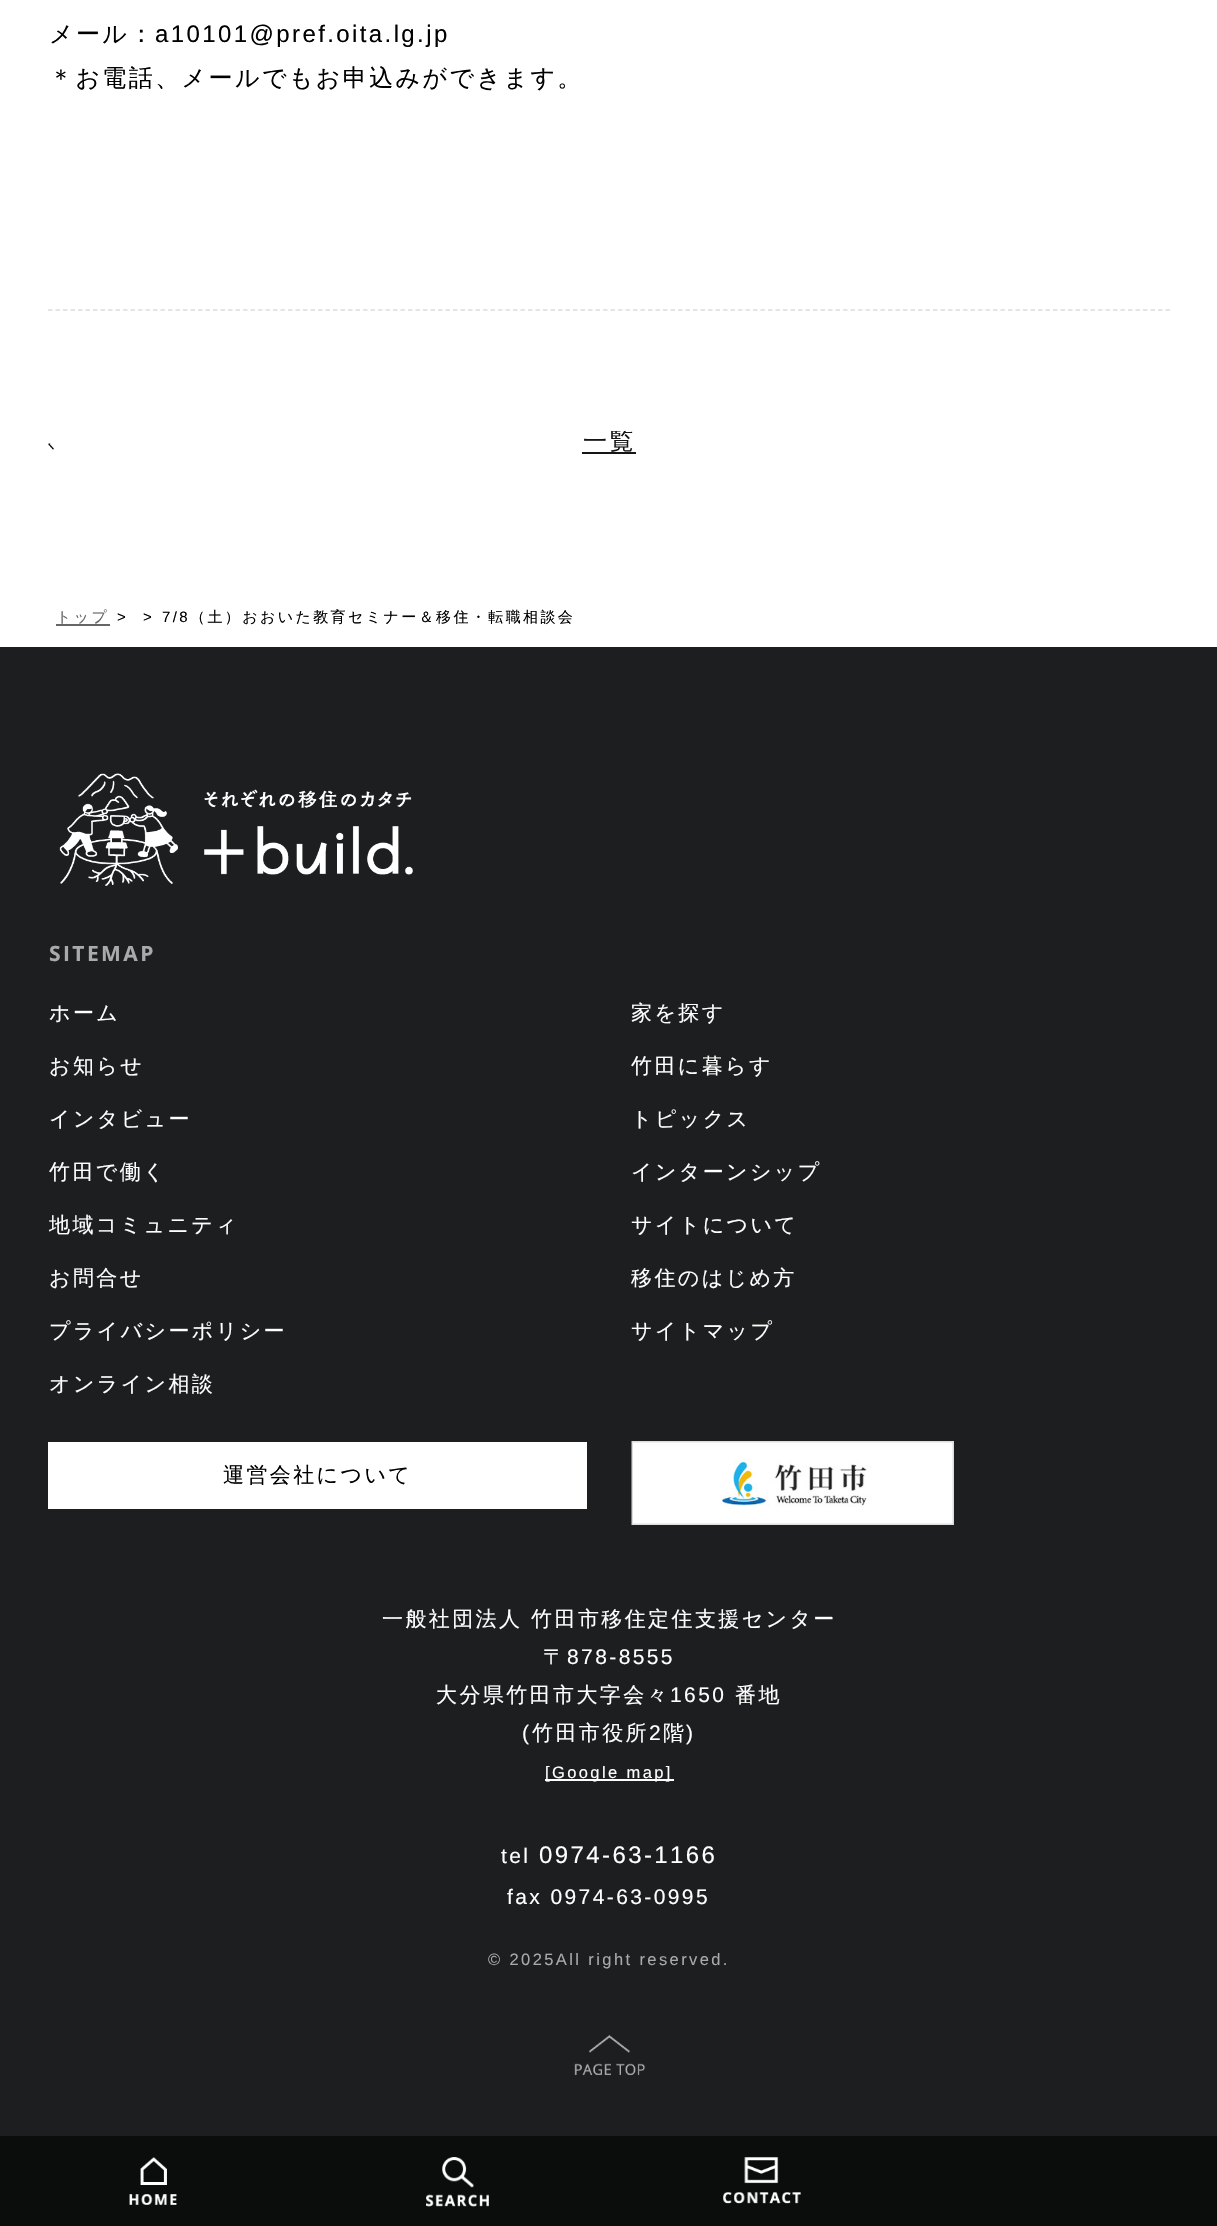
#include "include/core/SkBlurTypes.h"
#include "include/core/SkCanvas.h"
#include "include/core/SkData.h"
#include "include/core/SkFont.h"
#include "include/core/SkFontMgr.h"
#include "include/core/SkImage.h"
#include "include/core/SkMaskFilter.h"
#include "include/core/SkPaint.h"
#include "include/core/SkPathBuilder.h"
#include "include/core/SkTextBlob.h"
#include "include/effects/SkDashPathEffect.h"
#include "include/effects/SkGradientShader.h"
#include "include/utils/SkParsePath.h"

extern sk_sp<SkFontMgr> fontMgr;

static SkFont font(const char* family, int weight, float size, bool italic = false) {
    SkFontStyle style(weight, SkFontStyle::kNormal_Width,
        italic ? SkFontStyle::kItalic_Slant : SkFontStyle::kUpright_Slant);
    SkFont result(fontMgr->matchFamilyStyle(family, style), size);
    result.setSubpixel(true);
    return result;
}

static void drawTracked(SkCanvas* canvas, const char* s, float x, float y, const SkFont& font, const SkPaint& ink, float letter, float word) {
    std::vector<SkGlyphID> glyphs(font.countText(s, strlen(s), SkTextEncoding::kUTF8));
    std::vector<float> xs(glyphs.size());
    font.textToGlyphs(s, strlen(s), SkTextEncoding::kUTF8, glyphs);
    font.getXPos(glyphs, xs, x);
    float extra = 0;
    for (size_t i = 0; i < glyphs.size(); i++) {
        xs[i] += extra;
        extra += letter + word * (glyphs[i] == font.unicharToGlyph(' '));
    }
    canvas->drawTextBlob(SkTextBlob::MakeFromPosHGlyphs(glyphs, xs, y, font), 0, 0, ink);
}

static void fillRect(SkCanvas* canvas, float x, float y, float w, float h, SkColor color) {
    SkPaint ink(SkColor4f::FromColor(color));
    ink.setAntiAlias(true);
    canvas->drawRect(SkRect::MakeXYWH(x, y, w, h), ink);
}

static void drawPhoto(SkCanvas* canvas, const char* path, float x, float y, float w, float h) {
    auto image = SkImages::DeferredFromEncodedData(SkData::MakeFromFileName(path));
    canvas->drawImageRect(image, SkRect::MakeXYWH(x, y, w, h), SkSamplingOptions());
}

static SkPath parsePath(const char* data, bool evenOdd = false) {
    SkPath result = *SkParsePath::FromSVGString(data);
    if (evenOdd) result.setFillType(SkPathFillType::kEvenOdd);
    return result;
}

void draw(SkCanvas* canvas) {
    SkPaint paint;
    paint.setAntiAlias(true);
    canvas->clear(0xFFFFFFFF);
    paint.setStroke(true);
    paint.setStrokeWidth(1.5f);
    paint.setColor(0xFFDDDDDD);
    paint.setPathEffect(SkDashPathEffect::Make({{4.5f, 3}}, 0));
    canvas->drawPath(parsePath("M48 310H1170"), paint);
    paint.setPathEffect(nullptr);
    SkFont font1 = font("WenQuanYi Zen Hei", 500, 24);
    paint.setStroke(false);
    paint.setColor(0xFF000000);
    drawTracked(canvas, "メール：", 49, 42, font1, paint, 2.4f, 0);
    SkFont font2 = font("Liberation Sans", 400, 24);
    drawTracked(canvas, "a10101@pref.oita.lg.jp", 155, 42, font2, paint, 2.4f, 0);
    drawTracked(canvas, "＊お電話、メールでもお申込みができます。", 49, 86, font1, paint, 2.4f, 0);
    drawPhoto(canvas, "assets/img1.png", 48, 443, 6, 7);
    canvas->save();
    canvas->clipRect(SkRect::MakeXYWH(48, 431, 1122, 24));
    paint.setColor(0xFF151515);
    drawTracked(canvas, "一覧", 583, 449, font1, paint, 2.4f, 0);
    canvas->restore();
    fillRect(canvas, 582, 452, 54, 2, 0xFF151515);
    SkFont font3 = font("WenQuanYi Zen Hei", 500, 15);
    paint.setColor(0xFF666666);
    drawTracked(canvas, "トップ", 56, 622, font3, paint, 2.4f, 0);
    fillRect(canvas, 56, 624, 54, 2, 0xFF666666);
    SkFont font4 = font("Liberation Sans", 400, 15);
    paint.setColor(0xFF000000);
    drawTracked(canvas, ">", 117, 622, font4, paint, 2.4f, 0);
    drawTracked(canvas, ">", 143, 622, font4, paint, 2.4f, 0);
    drawTracked(canvas, "7/8", 162, 622, font4, paint, 2.4f, 0);
    drawTracked(canvas, "（土）おおいた教育セミナー＆移住・転職相談会", 190, 622, font3, paint, 2.4f, 0);
    fillRect(canvas, 0, 647, 1217, 1489, 0xFF1D1E1F);
    drawPhoto(canvas, "assets/img2.png", 59, 773, 354, 113);
    SkFont font5 = font("Open Sans", 700, 21);
    paint.setColor(0xFFAAAAAA);
    drawTracked(canvas, "SITEMAP", 49, 961, font5, paint, 2.4f, 0);
    SkFont font6 = font("WenQuanYi Zen Hei", 500, 21);
    paint.setColor(0xFFFFFFFF);
    drawTracked(canvas, "ホーム", 49, 1020, font6, paint, 2.4f, 0);
    drawTracked(canvas, "家を探す", 631, 1020, font6, paint, 2.4f, 0);
    drawTracked(canvas, "お知らせ", 49, 1073, font6, paint, 2.4f, 0);
    drawTracked(canvas, "竹田に暮らす", 631, 1073, font6, paint, 2.4f, 0);
    drawTracked(canvas, "インタビュー", 49, 1126, font6, paint, 2.4f, 0);
    drawTracked(canvas, "トピックス", 631, 1126, font6, paint, 2.4f, 0);
    drawTracked(canvas, "竹田で働く", 49, 1179, font6, paint, 2.4f, 0);
    drawTracked(canvas, "インターンシップ", 631, 1179, font6, paint, 2.4f, 0);
    drawTracked(canvas, "地域コミュニティ", 49, 1232, font6, paint, 2.4f, 0);
    drawTracked(canvas, "サイトについて", 631, 1232, font6, paint, 2.4f, 0);
    drawTracked(canvas, "お問合せ", 49, 1285, font6, paint, 2.4f, 0);
    drawTracked(canvas, "移住のはじめ方", 631, 1285, font6, paint, 2.4f, 0);
    drawTracked(canvas, "プライバシーポリシー", 49, 1338, font6, paint, 2.4f, 0);
    drawTracked(canvas, "サイトマップ", 631, 1338, font6, paint, 2.4f, 0);
    drawTracked(canvas, "オンライン相談", 49, 1391, font6, paint, 2.4f, 0);
    fillRect(canvas, 48, 1442, 539, 67, 0xFFFFFFFF);
    paint.setColor(0xFF000000);
    drawTracked(canvas, "運営会社について", 223, 1482, font6, paint, 2.4f, 0);
    drawPhoto(canvas, "assets/img3.png", 631, 1441, 323, 84);
    paint.setColor(0xFFFFFFFF);
    drawTracked(canvas, "一般社団法人 竹田市移住定住支援センター", 382, 1626, font6, paint, 2.4f, 0);
    drawTracked(canvas, "〒", 543, 1664, font6, paint, 2.4f, 0);
    SkFont font7 = font("Liberation Sans", 400, 21);
    drawTracked(canvas, "878-8555", 567, 1664, font7, paint, 2.4f, 0);
    drawTracked(canvas, "大分県竹田市大字会々", 436, 1702, font6, paint, 2.4f, 0);
    drawTracked(canvas, "1650", 670, 1702, font7, paint, 2.4f, 0);
    drawTracked(canvas, "番地", 735, 1702, font6, paint, 2.4f, 0);
    drawTracked(canvas, "(", 522, 1740, font7, paint, 2.4f, 0);
    drawTracked(canvas, "竹田市役所", 532, 1740, font6, paint, 2.4f, 0);
    drawTracked(canvas, "2", 649, 1740, font7, paint, 2.4f, 0);
    drawTracked(canvas, "階", 663, 1740, font6, paint, 2.4f, 0);
    drawTracked(canvas, ")", 686, 1740, font7, paint, 2.4f, 0);
    fillRect(canvas, 545, 1779, 129, 2, 0xFFFFFFFF);
    SkFont font8 = font("Liberation Sans", 400, 16.5f);
    drawTracked(canvas, "[Google map]", 545, 1778, font8, paint, 2.4f, 0);
    drawTracked(canvas, "tel", 501, 1863, font7, paint, 2.4f, 0);
    drawTracked(canvas, "0974-63-1166", 539, 1863, font2, paint, 2.4f, 0);
    drawTracked(canvas, "fax 0974-63-0995", 507, 1904, font7, paint, 2.4f, 0);
    paint.setColor(0xFFAAAAAA);
    drawTracked(canvas, "© 2025All right reserved.", 488, 1965, font8, paint, 2.4f, 0);
    drawPhoto(canvas, "assets/img4.png", 574, 2035, 71, 41);
    fillRect(canvas, 0, 2136, 1217, 90, 0xFF0B0C0C);
    drawPhoto(canvas, "assets/img5.png", 129, 2157, 48, 48);
    drawPhoto(canvas, "assets/img6.png", 426, 2157, 63, 50);
    drawPhoto(canvas, "assets/img7.png", 723, 2157, 78, 47);
}
